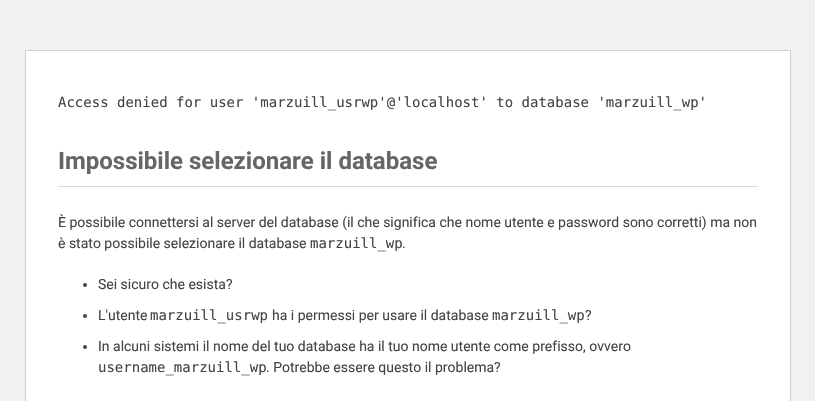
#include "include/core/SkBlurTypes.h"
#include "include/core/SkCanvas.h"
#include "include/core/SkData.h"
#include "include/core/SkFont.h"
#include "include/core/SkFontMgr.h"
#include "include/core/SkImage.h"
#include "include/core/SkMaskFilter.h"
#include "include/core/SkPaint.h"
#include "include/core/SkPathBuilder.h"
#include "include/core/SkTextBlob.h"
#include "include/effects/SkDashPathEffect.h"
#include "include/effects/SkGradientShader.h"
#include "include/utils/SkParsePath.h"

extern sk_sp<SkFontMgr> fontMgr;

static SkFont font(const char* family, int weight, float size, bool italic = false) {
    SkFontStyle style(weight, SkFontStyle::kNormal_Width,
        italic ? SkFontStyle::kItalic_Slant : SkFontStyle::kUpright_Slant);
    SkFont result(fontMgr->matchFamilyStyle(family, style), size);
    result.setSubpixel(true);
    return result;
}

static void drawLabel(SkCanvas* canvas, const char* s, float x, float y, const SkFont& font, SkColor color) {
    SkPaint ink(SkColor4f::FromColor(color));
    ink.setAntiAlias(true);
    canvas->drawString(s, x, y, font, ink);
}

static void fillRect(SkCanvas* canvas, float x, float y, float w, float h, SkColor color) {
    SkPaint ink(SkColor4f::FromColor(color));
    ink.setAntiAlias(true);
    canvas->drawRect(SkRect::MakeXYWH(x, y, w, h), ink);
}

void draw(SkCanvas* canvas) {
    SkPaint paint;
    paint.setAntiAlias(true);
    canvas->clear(0xFFF1F1F1);
    paint.setColor(0xFFFFFFFF);
    canvas->drawRect(SkRect::MakeXYWH(25.5f, 50.5f, 765, 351), paint);
    paint.setStroke(true);
    paint.setStrokeWidth(1);
    paint.setColor(0xFFCCD0D4);
    canvas->drawRect(SkRect::MakeXYWH(25.5f, 50.5f, 765, 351), paint);
    SkFont font1 = font("DejaVu Sans Mono", 400, 14);
    drawLabel(canvas, "Access denied for user 'marzuill_usrwp'@'localhost' to database 'marzuill_wp'", 58, 107, font1, 0xFF444444);
    fillRect(canvas, 58, 186, 700, 1, 0xFFDADADA);
    SkFont font2 = font("Roboto", 700, 24);
    drawLabel(canvas, "Impossibile selezionare il database", 58, 169, font2, 0xFF666666);
    SkFont font3 = font("Roboto", 400, 14);
    drawLabel(canvas, "È possibile connettersi al server del database (il che significa che nome utente e password sono corretti) ma non", 58, 227, font3, 0xFF444444);
    drawLabel(canvas, "è stato possibile selezionare il database", 58, 248, font3, 0xFF444444);
    drawLabel(canvas, "marzuill_wp", 310, 248, font1, 0xFF444444);
    drawLabel(canvas, ".", 402, 248, font3, 0xFF444444);
    paint.setStroke(false);
    paint.setColor(0xFF444444);
    canvas->drawCircle(85, 285, 2, paint);
    drawLabel(canvas, "Sei sicuro che esista?", 98, 289, font3, 0xFF444444);
    canvas->drawCircle(85, 316, 2, paint);
    drawLabel(canvas, "L'utente", 98, 320, font3, 0xFF444444);
    drawLabel(canvas, "marzuill_usrwp", 150, 320, font1, 0xFF444444);
    drawLabel(canvas, "ha i permessi per usare il database", 272, 320, font3, 0xFF444444);
    drawLabel(canvas, "marzuill_wp", 492, 320, font1, 0xFF444444);
    drawLabel(canvas, "?", 585, 320, font3, 0xFF444444);
    canvas->drawCircle(85, 347, 2, paint);
    drawLabel(canvas, "In alcuni sistemi il nome del tuo database ha il tuo nome utente come prefisso, ovvero", 98, 351, font3, 0xFF444444);
    drawLabel(canvas, "username_marzuill_wp", 98, 372, font1, 0xFF444444);
    drawLabel(canvas, ". Potrebbe essere questo il problema?", 266, 372, font3, 0xFF444444);
}
